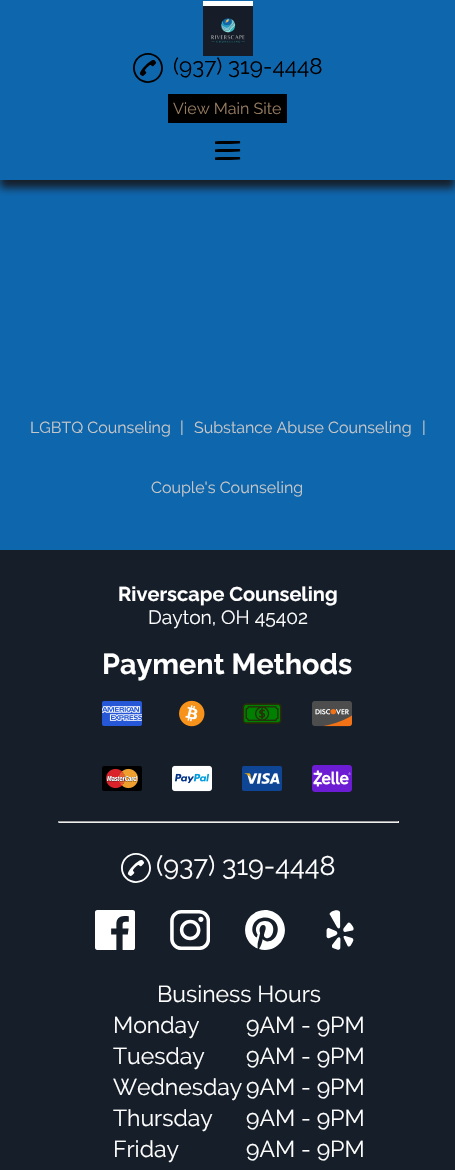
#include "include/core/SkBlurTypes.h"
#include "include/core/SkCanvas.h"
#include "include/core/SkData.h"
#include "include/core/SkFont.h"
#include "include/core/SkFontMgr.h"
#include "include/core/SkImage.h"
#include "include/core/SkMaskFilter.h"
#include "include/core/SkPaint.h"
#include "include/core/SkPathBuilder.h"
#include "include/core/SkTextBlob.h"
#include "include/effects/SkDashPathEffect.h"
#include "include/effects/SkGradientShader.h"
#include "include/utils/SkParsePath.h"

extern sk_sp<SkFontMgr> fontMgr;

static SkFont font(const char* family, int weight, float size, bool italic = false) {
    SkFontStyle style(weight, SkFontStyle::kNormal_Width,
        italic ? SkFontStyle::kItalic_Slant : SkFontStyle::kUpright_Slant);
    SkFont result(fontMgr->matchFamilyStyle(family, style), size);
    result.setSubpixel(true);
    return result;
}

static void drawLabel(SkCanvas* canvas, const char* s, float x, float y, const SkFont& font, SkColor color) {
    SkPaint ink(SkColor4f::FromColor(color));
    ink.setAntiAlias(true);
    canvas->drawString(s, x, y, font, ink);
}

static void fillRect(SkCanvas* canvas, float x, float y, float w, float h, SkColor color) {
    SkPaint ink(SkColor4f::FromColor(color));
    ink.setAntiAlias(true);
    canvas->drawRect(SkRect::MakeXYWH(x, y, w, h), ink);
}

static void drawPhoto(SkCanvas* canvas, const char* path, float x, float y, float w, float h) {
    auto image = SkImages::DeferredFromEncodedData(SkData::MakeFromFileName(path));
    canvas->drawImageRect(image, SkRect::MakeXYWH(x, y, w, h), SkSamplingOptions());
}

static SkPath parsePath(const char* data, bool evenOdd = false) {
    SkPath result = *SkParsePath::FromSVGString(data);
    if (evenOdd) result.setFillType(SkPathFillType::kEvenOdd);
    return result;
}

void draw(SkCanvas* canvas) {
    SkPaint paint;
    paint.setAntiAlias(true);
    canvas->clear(0xFF0E66AD);
    canvas->save();
    canvas->clipRect(SkRect::MakeXYWH(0, 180, 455, 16));
    paint.setColor(0xFF161E29);
    paint.setMaskFilter(SkMaskFilter::MakeBlur(kNormal_SkBlurStyle, 4));
    canvas->drawRect(SkRect::MakeXYWH(0, 8, 455, 180), paint);
    paint.setMaskFilter(nullptr);
    canvas->restore();
    fillRect(canvas, 203, 1, 50, 5, 0xFFFFFFFF);
    drawPhoto(canvas, "assets/img1.png", 203, 6, 50, 50);
    drawPhoto(canvas, "assets/img2.png", 133, 53, 30, 30);
    SkFont font1 = font("Raleway", 400, 22.5f);
    drawLabel(canvas, "(937) 319-4448", 173, 74, font1, 0xFF000000);
    fillRect(canvas, 168, 94, 119, 29, 0xFF000000);
    SkFont font2 = font("Raleway", 400, 16);
    drawLabel(canvas, "View Main Site", 173, 114, font2, 0xFF957B5F);
    paint.setColor(0xFF000000);
    canvas->drawPath(parsePath("M219 141H239.5C240.5 141.5 240.5 143.5 239.5 143.5L230.5 144H215.5C215 143.5 215 143.5 215 142.5V141.5ZM219 149H239.5C240.5 149.5 240.5 151.5 239.5 151.5L230.5 152H215.5C215 151.5 215 151.5 215 150.5V149.5ZM219 157H239.5C240.5 157.5 240.5 159.5 239.5 159.5L230.5 160H215.5C215 159.5 215 159.5 215 158.5V157.5Z"), paint);
    drawLabel(canvas, "LGBTQ Counseling", 30, 433, font2, 0xFFC7C7C7);
    drawLabel(canvas, "|", 180, 433, font2, 0xFFC7C7C7);
    drawLabel(canvas, "Substance Abuse Counseling", 194, 433, font2, 0xFFC7C7C7);
    drawLabel(canvas, "|", 422, 433, font2, 0xFFC7C7C7);
    drawLabel(canvas, "Couple's Counseling", 151, 493, font2, 0xFFC7C7C7);
    fillRect(canvas, 0, 550, 455, 620, 0xFF161E29);
    SkFont font3 = font("Raleway", 700, 20);
    drawLabel(canvas, "Riverscape Counseling", 118, 601, font3, 0xFFFFFFFF);
    SkFont font4 = font("Raleway", 400, 19.25f);
    drawLabel(canvas, "Dayton, OH 45402", 148, 624, font4, 0xFFFFFFFF);
    SkFont font5 = font("Raleway", 700, 28.75f);
    drawLabel(canvas, "Payment Methods", 102, 674, font5, 0xFFFFFFFF);
    drawPhoto(canvas, "assets/img3.png", 102, 701, 40, 25);
    drawPhoto(canvas, "assets/img4.png", 179, 700, 26, 27);
    drawPhoto(canvas, "assets/img5.png", 242, 703, 40, 21);
    drawPhoto(canvas, "assets/img6.png", 312, 701, 40, 26);
    drawPhoto(canvas, "assets/img7.png", 102, 766, 40, 25);
    drawPhoto(canvas, "assets/img8.png", 172, 765, 40, 27);
    drawPhoto(canvas, "assets/img9.png", 242, 766, 40, 25);
    drawPhoto(canvas, "assets/img10.png", 312, 765, 40, 27);
    fillRect(canvas, 58, 821, 341, 1, 0xFF9F9F9F);
    fillRect(canvas, 398, 821, 1, 2, 0xFFEEEEEE);
    fillRect(canvas, 58, 822, 341, 1, 0xFFEEEEEE);
    fillRect(canvas, 58, 821, 1, 2, 0xFF9F9F9F);
    drawPhoto(canvas, "assets/img11.png", 121, 853, 30, 30);
    SkFont font6 = font("Raleway", 400, 27);
    drawLabel(canvas, "(937) 319-4448", 156, 875, font6, 0xFFFFFFFF);
    drawPhoto(canvas, "assets/img12.png", 95, 910, 40, 40);
    drawPhoto(canvas, "assets/img13.png", 170, 910, 40, 40);
    drawPhoto(canvas, "assets/img14.png", 245, 910, 40, 40);
    drawPhoto(canvas, "assets/img15.png", 326, 910, 28, 40);
    SkFont font7 = font("Raleway", 400, 23);
    drawLabel(canvas, "Business Hours", 157, 1002, font7, 0xFFFFFFFF);
    drawLabel(canvas, "Monday", 113, 1033, font7, 0xFFFFFFFF);
    drawLabel(canvas, "9AM - 9PM", 246, 1033, font7, 0xFFFFFFFF);
    drawLabel(canvas, "Tuesday", 113, 1064, font7, 0xFFFFFFFF);
    drawLabel(canvas, "9AM - 9PM", 246, 1064, font7, 0xFFFFFFFF);
    drawLabel(canvas, "Wednesday", 113, 1095, font7, 0xFFFFFFFF);
    drawLabel(canvas, "9AM - 9PM", 246, 1095, font7, 0xFFFFFFFF);
    drawLabel(canvas, "Thursday", 113, 1126, font7, 0xFFFFFFFF);
    drawLabel(canvas, "9AM - 9PM", 246, 1126, font7, 0xFFFFFFFF);
    drawLabel(canvas, "Friday", 113, 1157, font7, 0xFFFFFFFF);
    drawLabel(canvas, "9AM - 9PM", 246, 1157, font7, 0xFFFFFFFF);
}
